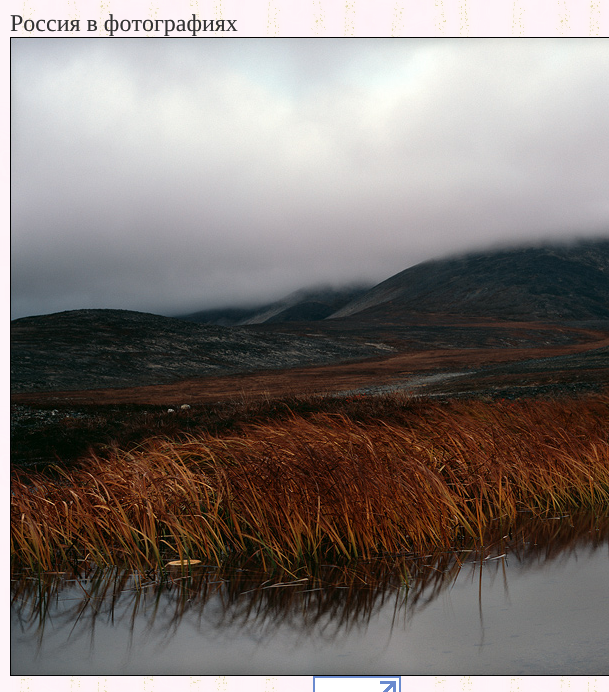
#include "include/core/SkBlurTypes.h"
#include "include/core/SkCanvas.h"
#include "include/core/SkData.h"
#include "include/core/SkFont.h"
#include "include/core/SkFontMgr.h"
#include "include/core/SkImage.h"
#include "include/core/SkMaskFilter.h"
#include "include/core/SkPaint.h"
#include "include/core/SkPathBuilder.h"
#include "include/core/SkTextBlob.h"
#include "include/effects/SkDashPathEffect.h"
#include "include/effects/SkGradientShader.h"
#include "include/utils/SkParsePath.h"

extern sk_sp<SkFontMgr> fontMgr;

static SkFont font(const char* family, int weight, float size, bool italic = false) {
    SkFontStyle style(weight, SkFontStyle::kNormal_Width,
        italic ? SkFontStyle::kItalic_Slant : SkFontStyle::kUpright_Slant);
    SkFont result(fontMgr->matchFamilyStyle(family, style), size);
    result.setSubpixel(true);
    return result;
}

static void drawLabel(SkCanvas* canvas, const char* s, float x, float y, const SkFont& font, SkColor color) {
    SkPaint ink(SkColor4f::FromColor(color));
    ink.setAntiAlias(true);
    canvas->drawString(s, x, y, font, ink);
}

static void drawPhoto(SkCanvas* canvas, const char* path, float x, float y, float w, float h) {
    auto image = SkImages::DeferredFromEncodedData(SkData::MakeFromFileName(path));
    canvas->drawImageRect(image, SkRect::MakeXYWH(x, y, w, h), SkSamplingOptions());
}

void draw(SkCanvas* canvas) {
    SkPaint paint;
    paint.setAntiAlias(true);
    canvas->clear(0xFFFFFFFF);
    drawPhoto(canvas, "assets/img1.png", 0, 0, 609, 692);
    SkFont font1 = font("Liberation Serif", 400, 24);
    drawLabel(canvas, "Россия в фотографиях", 10, 31, font1, 0xFF333333);
    drawPhoto(canvas, "assets/img2.png", 10, 37, 599, 639);
    drawPhoto(canvas, "assets/img3.png", 313, 676, 88, 16);
}
